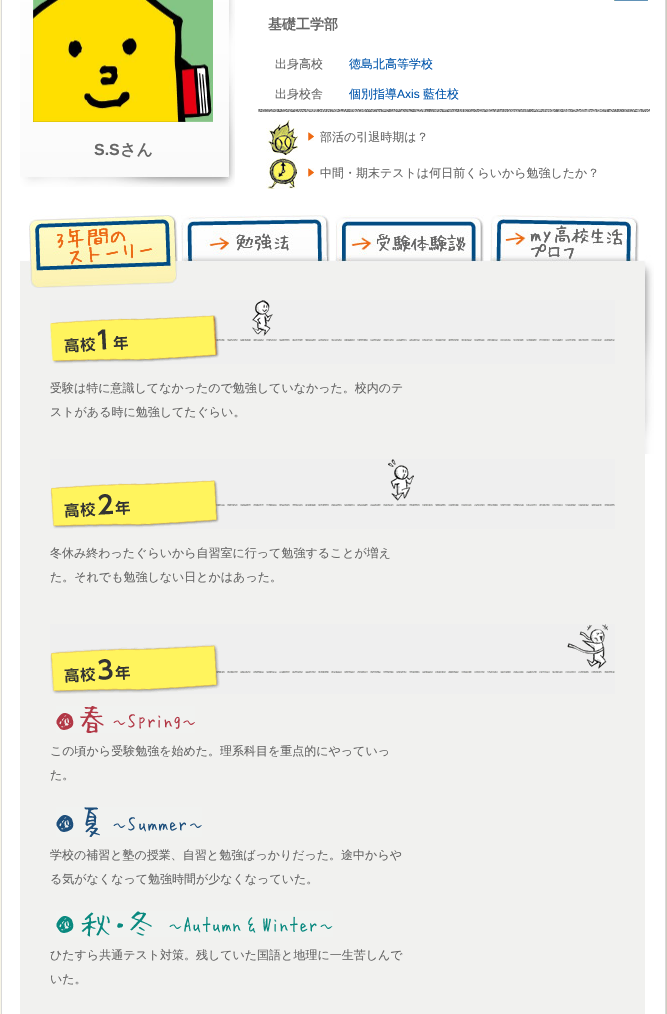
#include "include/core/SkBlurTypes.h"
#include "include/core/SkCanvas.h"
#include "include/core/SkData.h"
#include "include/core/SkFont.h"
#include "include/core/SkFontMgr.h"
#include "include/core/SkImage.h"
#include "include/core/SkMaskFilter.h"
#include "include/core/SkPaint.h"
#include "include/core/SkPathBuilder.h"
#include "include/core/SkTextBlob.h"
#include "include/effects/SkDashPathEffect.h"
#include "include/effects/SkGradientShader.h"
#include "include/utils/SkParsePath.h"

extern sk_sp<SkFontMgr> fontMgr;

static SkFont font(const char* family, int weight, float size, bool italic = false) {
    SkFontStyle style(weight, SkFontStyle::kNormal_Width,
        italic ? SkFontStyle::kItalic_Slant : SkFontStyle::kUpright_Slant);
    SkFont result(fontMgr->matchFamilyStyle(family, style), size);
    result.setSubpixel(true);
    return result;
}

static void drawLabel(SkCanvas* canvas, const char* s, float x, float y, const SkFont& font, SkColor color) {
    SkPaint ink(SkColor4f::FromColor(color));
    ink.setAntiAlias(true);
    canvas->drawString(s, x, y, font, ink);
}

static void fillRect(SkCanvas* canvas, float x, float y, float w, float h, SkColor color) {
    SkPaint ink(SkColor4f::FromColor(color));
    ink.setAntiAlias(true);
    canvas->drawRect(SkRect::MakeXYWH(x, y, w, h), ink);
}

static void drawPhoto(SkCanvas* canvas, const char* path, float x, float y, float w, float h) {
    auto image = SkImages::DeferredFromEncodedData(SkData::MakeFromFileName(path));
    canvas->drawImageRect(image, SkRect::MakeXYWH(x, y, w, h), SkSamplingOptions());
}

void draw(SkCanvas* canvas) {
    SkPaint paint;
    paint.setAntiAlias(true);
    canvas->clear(0xFFF8F5E6);
    drawPhoto(canvas, "assets/img1.png", 1, 0, 666, 1014);
    drawPhoto(canvas, "assets/img2.png", 20, 0, 215, 187);
    drawPhoto(canvas, "assets/img3.png", 33, 0, 180, 122);
    SkFont font1 = font("Liberation Sans", 700, 16);
    drawLabel(canvas, "S.S", 94, 155, font1, 0xFF666666);
    SkFont font2 = font("WenQuanYi Zen Hei", 700, 16);
    drawLabel(canvas, "さん", 120, 155, font2, 0xFF666666);
    drawPhoto(canvas, "assets/img4.png", 258, 109, 392, 3);
    drawPhoto(canvas, "assets/img5.png", 614, 0, 34, 1);
    SkFont font3 = font("WenQuanYi Zen Hei", 700, 14);
    drawLabel(canvas, "基礎工学部", 268, 29, font3, 0xFF666666);
    SkFont font4 = font("WenQuanYi Zen Hei", 500, 12);
    drawLabel(canvas, "出身高校", 275, 68, font4, 0xFF666666);
    drawLabel(canvas, "徳島北高等学校", 349, 68, font4, 0xFF0055AC);
    drawLabel(canvas, "出身校舎", 275, 98, font4, 0xFF666666);
    drawLabel(canvas, "個別指導", 349, 98, font4, 0xFF0055AC);
    SkFont font5 = font("Liberation Sans", 400, 12);
    drawLabel(canvas, "Axis", 397, 98, font5, 0xFF0055AC);
    drawLabel(canvas, "藍住校", 423, 98, font4, 0xFF0055AC);
    drawPhoto(canvas, "assets/img6.png", 266, 120, 32, 35);
    drawPhoto(canvas, "assets/img7.png", 308, 132, 6, 9);
    drawLabel(canvas, "部活の引退時期は？", 320, 141, font4, 0xFF666666);
    drawPhoto(canvas, "assets/img8.png", 266, 158, 32, 31);
    drawPhoto(canvas, "assets/img7.png", 308, 168, 6, 9);
    drawLabel(canvas, "中間・期末テストは何日前くらいから勉強したか？", 320, 177, font4, 0xFF666666);
    fillRect(canvas, 20, 454, 625, 560, 0xFFF1F1EF);
    drawPhoto(canvas, "assets/img9.png", 20, 215, 634, 239);
    drawPhoto(canvas, "assets/img10.png", 29, 215, 149, 73);
    drawPhoto(canvas, "assets/img11.png", 181, 215, 149, 48);
    drawPhoto(canvas, "assets/img12.png", 335, 215, 149, 48);
    drawPhoto(canvas, "assets/img13.png", 490, 215, 149, 48);
    drawPhoto(canvas, "assets/img14.png", 50, 300, 565, 64);
    drawLabel(canvas, "受験は特に意識してなかったので勉強していなかった。校内のテ", 50, 392, font4, 0xFF666666);
    drawLabel(canvas, "ストがある時に勉強してたぐらい。", 50, 416, font4, 0xFF666666);
    drawPhoto(canvas, "assets/img15.png", 50, 459, 565, 70);
    drawLabel(canvas, "冬休み終わったぐらいから自習室に行って勉強することが増え", 50, 557, font4, 0xFF666666);
    drawLabel(canvas, "た。それでも勉強しない日とかはあった。", 50, 581, font4, 0xFF666666);
    drawPhoto(canvas, "assets/img16.png", 50, 624, 565, 70);
    drawPhoto(canvas, "assets/img17.png", 56, 706, 139, 27);
    drawLabel(canvas, "この頃から受験勉強を始めた。理系科目を重点的にやっていっ", 50, 755, font4, 0xFF666666);
    drawLabel(canvas, "た。", 50, 779, font4, 0xFF666666);
    drawPhoto(canvas, "assets/img18.png", 56, 807, 146, 30);
    drawLabel(canvas, "学校の補習と塾の授業、自習と勉強ばっかりだった。途中からや", 50, 859, font4, 0xFF666666);
    drawLabel(canvas, "る気がなくなって勉強時間が少なくなっていた。", 50, 883, font4, 0xFF666666);
    drawPhoto(canvas, "assets/img19.png", 56, 911, 277, 26);
    drawLabel(canvas, "ひたすら共通テスト対策。残していた国語と地理に一生苦しんで", 50, 959, font4, 0xFF666666);
    drawLabel(canvas, "いた。", 50, 983, font4, 0xFF666666);
}
